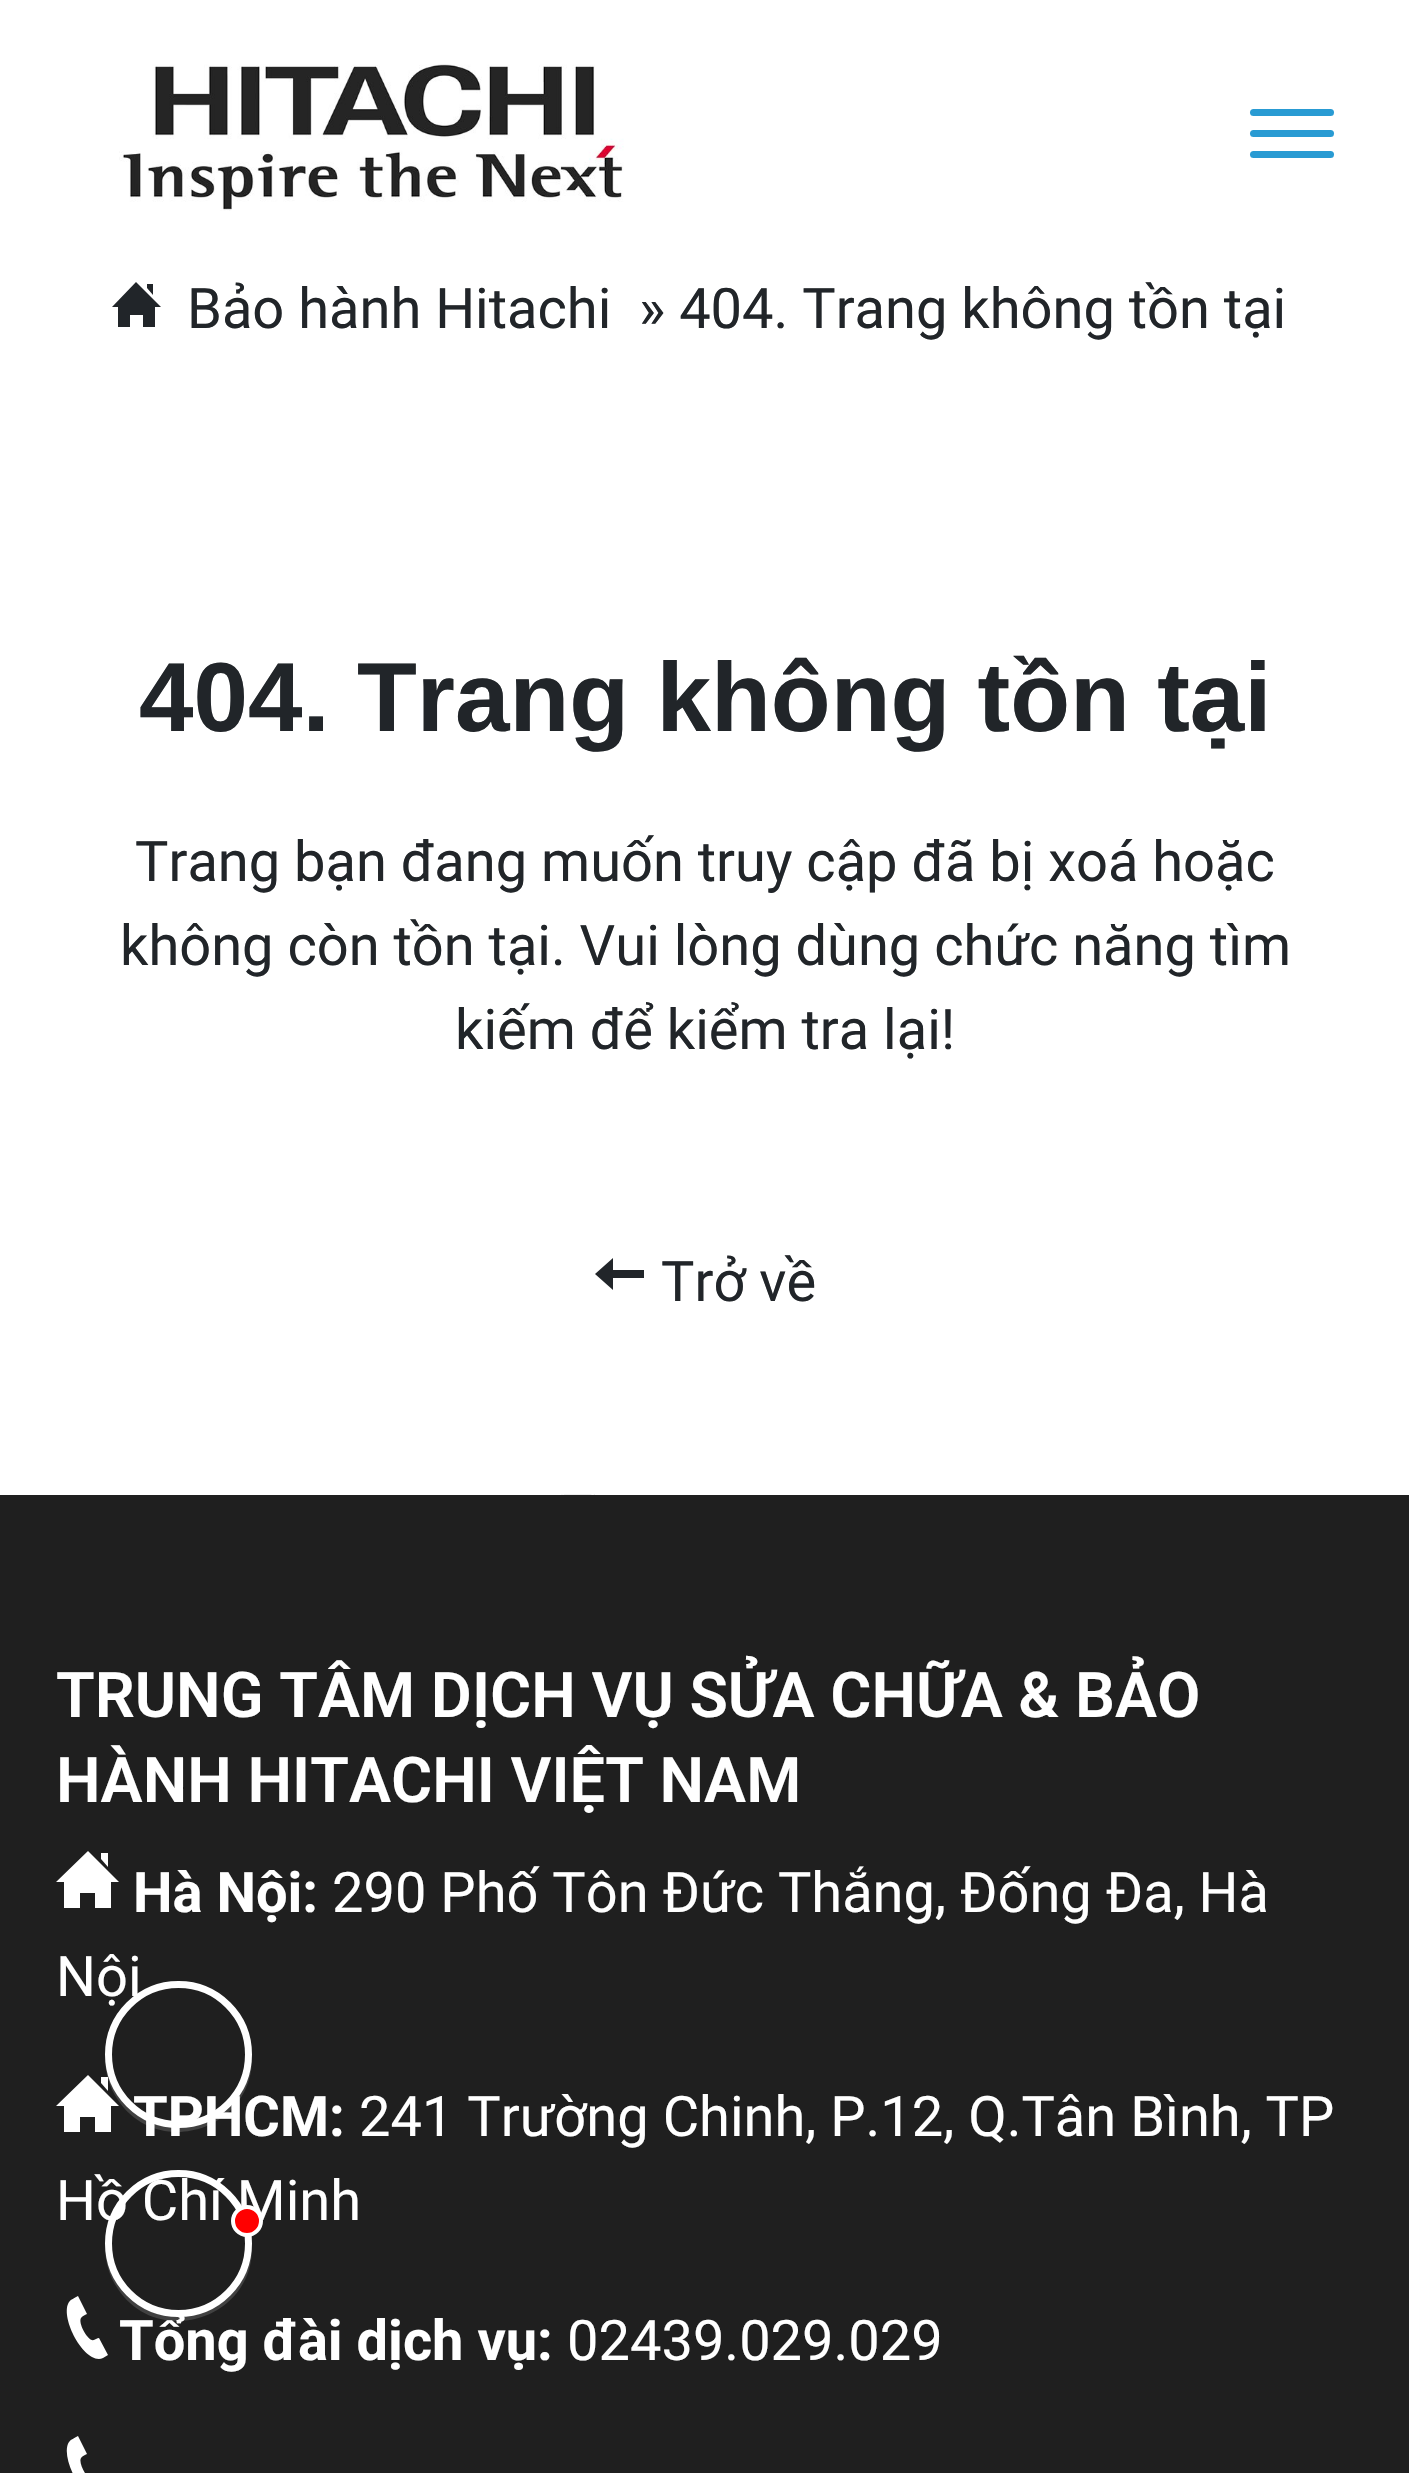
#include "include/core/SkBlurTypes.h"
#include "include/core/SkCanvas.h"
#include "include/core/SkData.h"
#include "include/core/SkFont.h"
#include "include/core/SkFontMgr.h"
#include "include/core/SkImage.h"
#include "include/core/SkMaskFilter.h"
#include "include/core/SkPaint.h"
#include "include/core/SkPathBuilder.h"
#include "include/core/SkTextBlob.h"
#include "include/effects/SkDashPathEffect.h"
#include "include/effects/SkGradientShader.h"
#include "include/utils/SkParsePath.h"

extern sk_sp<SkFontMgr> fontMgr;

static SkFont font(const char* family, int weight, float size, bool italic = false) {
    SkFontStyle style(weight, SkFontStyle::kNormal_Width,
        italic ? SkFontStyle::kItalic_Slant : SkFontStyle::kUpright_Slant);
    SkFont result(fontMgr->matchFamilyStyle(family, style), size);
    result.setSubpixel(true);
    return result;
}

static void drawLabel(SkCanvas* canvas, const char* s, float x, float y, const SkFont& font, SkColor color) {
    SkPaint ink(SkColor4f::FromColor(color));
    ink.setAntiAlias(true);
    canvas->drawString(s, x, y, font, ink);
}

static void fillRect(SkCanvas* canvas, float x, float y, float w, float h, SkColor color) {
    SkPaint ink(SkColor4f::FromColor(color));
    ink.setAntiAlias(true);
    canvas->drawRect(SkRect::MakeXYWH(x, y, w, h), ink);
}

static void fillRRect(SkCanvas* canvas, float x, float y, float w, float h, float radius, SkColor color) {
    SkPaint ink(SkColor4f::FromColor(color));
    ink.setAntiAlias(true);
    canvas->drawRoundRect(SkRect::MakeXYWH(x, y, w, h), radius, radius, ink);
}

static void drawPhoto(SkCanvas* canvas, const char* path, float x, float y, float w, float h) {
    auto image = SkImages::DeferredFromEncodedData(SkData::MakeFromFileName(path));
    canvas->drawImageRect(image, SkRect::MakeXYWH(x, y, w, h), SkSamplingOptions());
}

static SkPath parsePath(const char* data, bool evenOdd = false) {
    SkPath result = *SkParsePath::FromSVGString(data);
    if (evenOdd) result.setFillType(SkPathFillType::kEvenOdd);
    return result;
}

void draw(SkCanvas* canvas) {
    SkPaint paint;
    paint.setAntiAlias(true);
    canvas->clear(0xFFFFFFFF);
    drawPhoto(canvas, "assets/img1.png", 119, 64, 505, 147);
    fillRRect(canvas, 1250, 109, 84, 7, 3.5f, 0xFF299BD3);
    fillRRect(canvas, 1250, 130, 84, 7, 3.5f, 0xFF299BD3);
    fillRRect(canvas, 1250, 151, 84, 7, 3.5f, 0xFF299BD3);
    paint.setColor(0xFF212529);
    canvas->drawPath(parsePath("M155 307V327H143V315H130V327H118V307H112L136 282L161 307ZM153 295V284H147V288Z"), paint);
    SkFont font1 = font("Roboto", 400, 56);
    drawLabel(canvas, "Bảo hành Hitachi", 187, 328, font1, 0xFF212529);
    drawLabel(canvas, "» 404. Trang không tồn tại", 639, 328, font1, 0xFF212529);
    SkFont font2 = font("Liberation Sans", 700, 98);
    drawLabel(canvas, "404. Trang không tồn tại", 139, 731, font2, 0xFF212529);
    drawLabel(canvas, "Trang bạn đang muốn truy cập đã bị xoá hoặc", 135, 881, font1, 0xFF212529);
    drawLabel(canvas, "không còn tồn tại. Vui lòng dùng chức năng tìm", 120, 965, font1, 0xFF212529);
    drawLabel(canvas, "kiếm để kiểm tra lại!", 455, 1049, font1, 0xFF212529);
    canvas->drawPath(parsePath("M595 1274L613 1258V1270H644V1278H613V1290Z"), paint);
    drawLabel(canvas, "Trở về", 661, 1301, font1, 0xFF212529);
    fillRect(canvas, 0, 1495, 1409, 978, 0xFF1F1F1F);
    drawPhoto(canvas, "assets/img2.png", 561, 1494, 34, 1);
    SkFont font3 = font("Roboto", 600, 63);
    drawLabel(canvas, "TRUNG TÂM DỊCH VỤ SỬA CHỮA & BẢO", 56, 1717, font3, 0xFFFFFFFF);
    drawLabel(canvas, "HÀNH HITACHI VIỆT NAM", 56, 1802, font3, 0xFFFFFFFF);
    paint.setColor(0xFFFFFFFF);
    canvas->drawPath(parsePath("M111 1882V1908H95V1893H80V1908H64V1882H56L88 1851L119 1882ZM108 1867V1853H101V1859Z"), paint);
    SkFont font4 = font("Roboto", 700, 56);
    drawLabel(canvas, "Hà Nội:", 133, 1912, font4, 0xFFFFFFFF);
    drawLabel(canvas, "290 Phố Tôn Đức Thắng, Đống Đa, Hà", 332, 1912, font1, 0xFFFFFFFF);
    drawLabel(canvas, "Nội", 56, 1996, font1, 0xFFFFFFFF);
    canvas->drawPath(parsePath("M111 2106V2132H95V2117H80V2132H64V2106H56L88 2075L119 2106ZM108 2091V2077H101V2083Z"), paint);
    drawLabel(canvas, "TPHCM:", 133, 2136, font4, 0xFFFFFFFF);
    drawLabel(canvas, "241 Trường Chinh, P.12, Q.Tân Bình, TP", 359, 2136, font1, 0xFFFFFFFF);
    drawLabel(canvas, "Hồ Chí Minh", 56, 2220, font1, 0xFFFFFFFF);
    canvas->drawPath(parsePath("M103 2358C85 2366 59 2317 69 2302C71 2299 75 2298 78 2296L87 2314C85 2315 82 2316 81 2318C78 2323 87 2339 92 2340C94 2341 97 2338 99 2338L108 2355Z"), paint);
    drawLabel(canvas, "Tổng đài dịch vụ:", 119, 2360, font4, 0xFFFFFFFF);
    drawLabel(canvas, "02439.029.029", 567, 2360, font1, 0xFFFFFFFF);
    canvas->drawPath(parsePath("M103 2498C85 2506 59 2457 69 2442C71 2439 75 2438 78 2436L87 2454C85 2455 82 2456 81 2458C78 2463 87 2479 92 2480C94 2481 97 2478 99 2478L108 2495Z"), paint);
    paint.setColor(0x26FFFFFF);
    canvas->drawPath(parsePath("M252 2056C251 2096 218 2128 178 2128C139 2128 106 2096 105 2056C105 2072 109 2087 118 2100C158 2160 254 2130 252 2056Z"), paint);
    paint.setStroke(true);
    paint.setStrokeWidth(7);
    paint.setColor(0xFFFFFFFF);
    canvas->drawCircle(178.5f, 2054.5f, 70, paint);
    paint.setStroke(false);
    paint.setColor(0x26FFFFFF);
    canvas->drawPath(parsePath("M105 2246C105 2261 109 2276 118 2289C158 2349 254 2319 252 2246C251 2285 218 2317 178 2317C139 2317 106 2285 105 2246Z"), paint);
    paint.setStroke(true);
    paint.setColor(0xFFFFFFFF);
    canvas->drawCircle(178.5f, 2243.5f, 70, paint);
    paint.setStroke(false);
    paint.setColor(0xFFFF0000);
    canvas->drawCircle(247, 2221, 14, paint);
    paint.setStroke(true);
    paint.setStrokeWidth(4);
    paint.setColor(0xFFFFFFFF);
    canvas->drawCircle(247, 2221, 14, paint);
}
